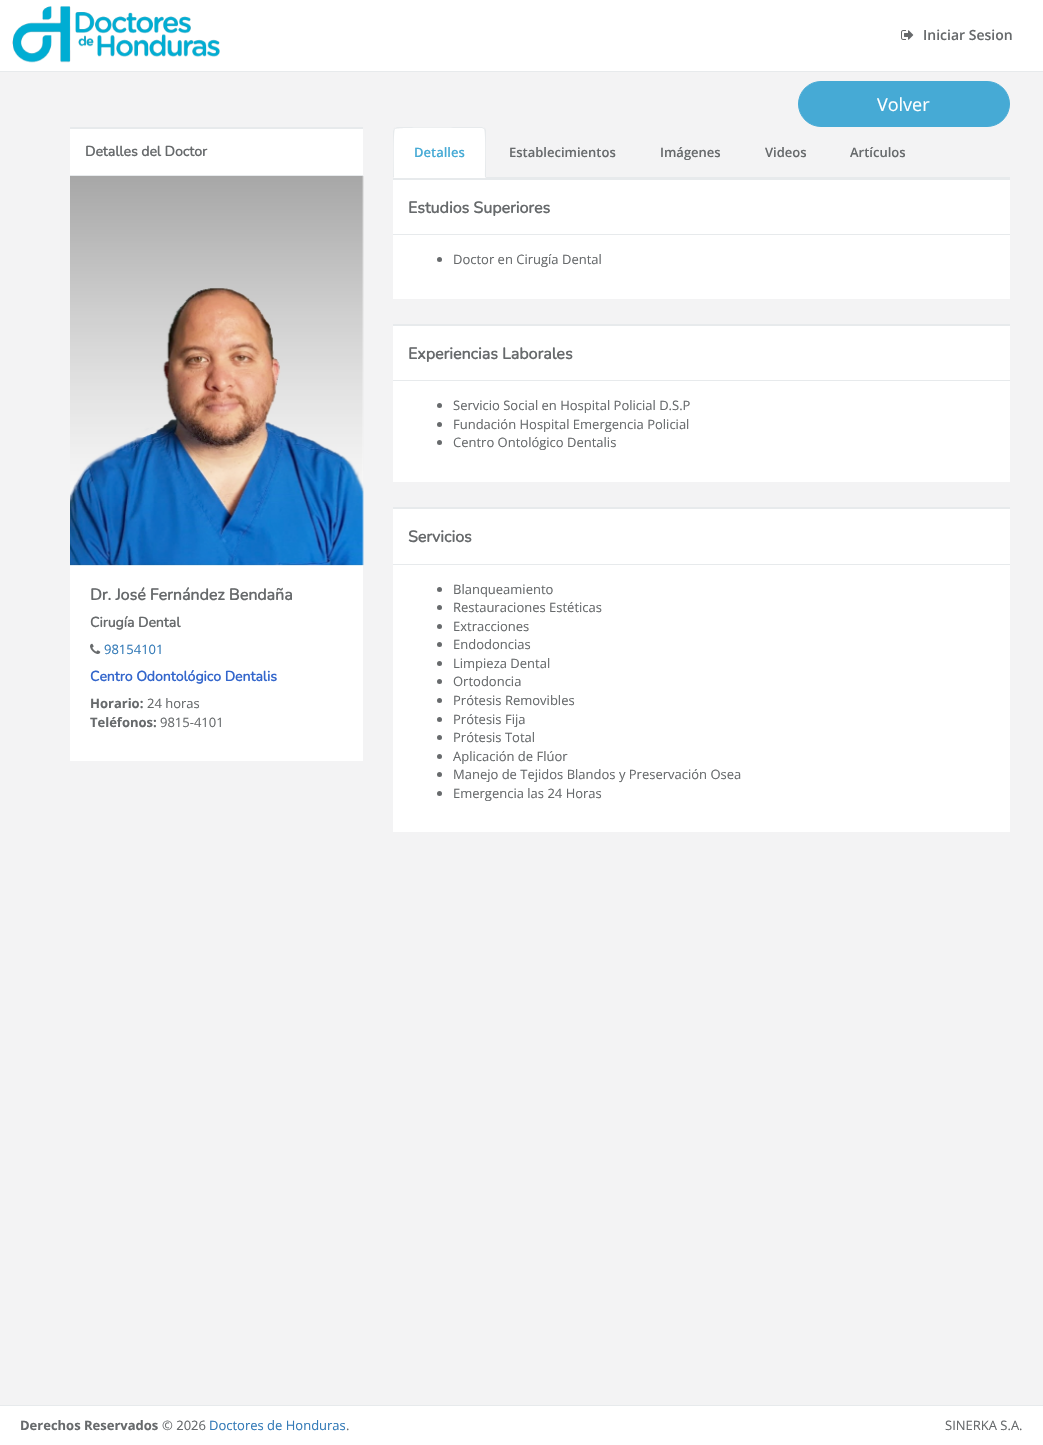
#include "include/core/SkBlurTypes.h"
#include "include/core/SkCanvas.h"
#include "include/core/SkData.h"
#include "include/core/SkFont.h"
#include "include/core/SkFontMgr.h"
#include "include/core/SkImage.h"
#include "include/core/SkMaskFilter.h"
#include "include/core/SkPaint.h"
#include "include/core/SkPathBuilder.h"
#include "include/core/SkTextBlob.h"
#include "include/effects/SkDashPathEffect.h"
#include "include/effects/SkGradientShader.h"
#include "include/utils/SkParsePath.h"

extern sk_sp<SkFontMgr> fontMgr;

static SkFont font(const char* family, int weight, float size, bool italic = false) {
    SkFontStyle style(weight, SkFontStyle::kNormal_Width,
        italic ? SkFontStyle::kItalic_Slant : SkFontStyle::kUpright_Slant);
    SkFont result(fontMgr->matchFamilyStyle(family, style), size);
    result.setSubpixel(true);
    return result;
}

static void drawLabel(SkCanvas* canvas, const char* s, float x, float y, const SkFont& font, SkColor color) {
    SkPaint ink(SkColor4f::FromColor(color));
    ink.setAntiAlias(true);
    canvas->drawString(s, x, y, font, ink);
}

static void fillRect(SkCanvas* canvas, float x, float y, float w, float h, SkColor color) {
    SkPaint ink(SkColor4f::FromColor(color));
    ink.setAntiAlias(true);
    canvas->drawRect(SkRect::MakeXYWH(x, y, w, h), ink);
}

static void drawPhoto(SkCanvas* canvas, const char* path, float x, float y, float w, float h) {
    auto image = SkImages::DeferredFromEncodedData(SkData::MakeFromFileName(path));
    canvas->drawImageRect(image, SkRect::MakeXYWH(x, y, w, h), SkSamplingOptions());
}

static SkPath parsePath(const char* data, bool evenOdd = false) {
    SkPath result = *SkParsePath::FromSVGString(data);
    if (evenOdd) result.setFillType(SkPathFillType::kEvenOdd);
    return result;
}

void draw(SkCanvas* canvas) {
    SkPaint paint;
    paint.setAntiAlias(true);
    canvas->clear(0xFFF3F3F4);
    fillRect(canvas, 0, 0, 1043, 71, 0xFFFFFFFF);
    fillRect(canvas, 0, 71, 1043, 1, 0xFFE7EAEC);
    drawPhoto(canvas, "assets/img1.png", 12, 6, 208, 57);
    drawPhoto(canvas, "assets/img2.png", 901, 30, 13, 10);
    SkFont font1 = font("Open Sans", 600, 14);
    drawLabel(canvas, "Iniciar Sesion", 923, 40, font1, 0xFF676A6C);
    paint.setColor(0xFF46AAD5);
    canvas->drawRoundRect(SkRect::MakeXYWH(798.5f, 81.5f, 211, 45), 22.5f, 22.5f, paint);
    paint.setStroke(true);
    paint.setStrokeWidth(1);
    canvas->drawRoundRect(SkRect::MakeXYWH(798.5f, 81.5f, 211, 45), 22.5f, 22.5f, paint);
    SkFont font2 = font("Open Sans", 400, 18);
    drawLabel(canvas, "Volver", 877, 111, font2, 0xFFFFFFFF);
    fillRect(canvas, 70, 129, 293, 46, 0xFFFFFFFF);
    fillRect(canvas, 70, 127, 293, 2, 0xFFE7EAEC);
    SkFont font3 = font("Nunito", 700, 14);
    drawLabel(canvas, "Detalles del Doctor", 85, 156, font3, 0xFF676A6C);
    fillRect(canvas, 70, 176, 293, 585, 0xFFFFFFFF);
    fillRect(canvas, 70, 175, 293, 1, 0xFFE7EAEC);
    drawPhoto(canvas, "assets/img3.png", 70, 176, 294, 390);
    SkFont font4 = font("Nunito", 700, 16);
    drawLabel(canvas, "Dr. José Fernández Bendaña", 90, 600, font4, 0xFF676A6C);
    drawLabel(canvas, "Cirugía Dental", 90, 627, font3, 0xFF676A6C);
    drawPhoto(canvas, "assets/img4.png", 90, 643, 11, 11);
    SkFont font5 = font("Open Sans", 400, 13);
    drawLabel(canvas, "98154101", 104, 654, font5, 0xFF337AB7);
    drawLabel(canvas, "Centro Odontológico Dentalis", 90, 681, font3, 0xFF3366CC);
    SkFont font6 = font("Open Sans", 700, 13);
    drawLabel(canvas, "Horario:", 90, 708, font6, 0xFF676A6C);
    drawLabel(canvas, "24 horas", 147, 708, font5, 0xFF676A6C);
    drawLabel(canvas, "Teléfonos:", 90, 727, font6, 0xFF676A6C);
    drawLabel(canvas, "9815-4101", 160, 727, font5, 0xFF676A6C);
    fillRect(canvas, 486, 177, 524, 1, 0xFFE7EAEC);
    paint.setStroke(false);
    paint.setColor(0xFFFFFFFF);
    canvas->drawPath(parsePath("M397 127H482C484 127 486 129 486 131V178H393V131C393 129 395 127 397 127Z"), paint);
    paint.setColor(0xFFE7EAEC);
    canvas->drawPath(parsePath("M397 127L394 128L395 129C397 127 460 128 468 128H482L484 129L485 128L482 127Z"), paint);
    canvas->drawPath(parsePath("M486 178V130L485 128L484 129C486 131 485 171 485 177Z"), paint);
    canvas->drawPath(parsePath("M393 178L394 177C394 171 393 131 395 129L394 128L393 131Z"), paint);
    SkFont font7 = font("Open Sans", 600, 13);
    drawLabel(canvas, "Detalles", 414, 157, font7, 0xFF46AAD5);
    drawLabel(canvas, "Establecimientos", 509, 157, font7, 0xFF676A6C);
    drawLabel(canvas, "Imágenes", 660, 157, font7, 0xFF676A6C);
    drawLabel(canvas, "Videos", 765, 157, font7, 0xFF676A6C);
    drawLabel(canvas, "Artículos", 850, 157, font7, 0xFF676A6C);
    fillRect(canvas, 393, 180, 617, 54, 0xFFFFFFFF);
    fillRect(canvas, 393, 178, 617, 2, 0xFFE7EAEC);
    drawLabel(canvas, "Estudios Superiores", 408, 213, font4, 0xFF676A6C);
    fillRect(canvas, 393, 235, 617, 64, 0xFFFFFFFF);
    fillRect(canvas, 393, 234, 617, 1, 0xFFE7EAEC);
    paint.setColor(0xFF676A6C);
    canvas->drawCircle(439.5f, 259.5f, 2.5f, paint);
    drawLabel(canvas, "Doctor en Cirugía Dental", 453, 264, font5, 0xFF676A6C);
    fillRect(canvas, 393, 326, 617, 54, 0xFFFFFFFF);
    fillRect(canvas, 393, 324, 617, 2, 0xFFE7EAEC);
    drawLabel(canvas, "Experiencias Laborales", 408, 359, font4, 0xFF676A6C);
    fillRect(canvas, 393, 381, 617, 101, 0xFFFFFFFF);
    fillRect(canvas, 393, 380, 617, 1, 0xFFE7EAEC);
    canvas->drawCircle(439.5f, 405.5f, 2.5f, paint);
    drawLabel(canvas, "Servicio Social en Hospital Policial D.S.P", 453, 410, font5, 0xFF676A6C);
    canvas->drawCircle(439.5f, 424.5f, 2.5f, paint);
    drawLabel(canvas, "Fundación Hospital Emergencia Policial", 453, 429, font5, 0xFF676A6C);
    canvas->drawCircle(439.5f, 442.5f, 2.5f, paint);
    drawLabel(canvas, "Centro Ontológico Dentalis", 453, 447, font5, 0xFF676A6C);
    fillRect(canvas, 393, 509, 617, 55, 0xFFFFFFFF);
    fillRect(canvas, 393, 507, 617, 2, 0xFFE7EAEC);
    drawLabel(canvas, "Servicios", 408, 542, font4, 0xFF676A6C);
    fillRect(canvas, 393, 565, 617, 267, 0xFFFFFFFF);
    fillRect(canvas, 393, 564, 617, 1, 0xFFE7EAEC);
    canvas->drawCircle(439.5f, 589.5f, 2.5f, paint);
    drawLabel(canvas, "Blanqueamiento", 453, 594, font5, 0xFF676A6C);
    canvas->drawCircle(439.5f, 607.5f, 2.5f, paint);
    drawLabel(canvas, "Restauraciones Estéticas", 453, 612, font5, 0xFF676A6C);
    canvas->drawCircle(439.5f, 626.5f, 2.5f, paint);
    drawLabel(canvas, "Extracciones", 453, 631, font5, 0xFF676A6C);
    canvas->drawCircle(439.5f, 644.5f, 2.5f, paint);
    drawLabel(canvas, "Endodoncias", 453, 649, font5, 0xFF676A6C);
    canvas->drawCircle(439.5f, 663.5f, 2.5f, paint);
    drawLabel(canvas, "Limpieza Dental", 453, 668, font5, 0xFF676A6C);
    canvas->drawCircle(439.5f, 681.5f, 2.5f, paint);
    drawLabel(canvas, "Ortodoncia", 453, 686, font5, 0xFF676A6C);
    canvas->drawCircle(439.5f, 700.5f, 2.5f, paint);
    drawLabel(canvas, "Prótesis Removibles", 453, 705, font5, 0xFF676A6C);
    canvas->drawCircle(439.5f, 719.5f, 2.5f, paint);
    drawLabel(canvas, "Prótesis Fija", 453, 724, font5, 0xFF676A6C);
    canvas->drawCircle(439.5f, 737.5f, 2.5f, paint);
    drawLabel(canvas, "Prótesis Total", 453, 742, font5, 0xFF676A6C);
    canvas->drawCircle(439.5f, 756.5f, 2.5f, paint);
    drawLabel(canvas, "Aplicación de Flúor", 453, 761, font5, 0xFF676A6C);
    canvas->drawCircle(439.5f, 774.5f, 2.5f, paint);
    drawLabel(canvas, "Manejo de Tejidos Blandos y Preservación Osea", 453, 779, font5, 0xFF676A6C);
    canvas->drawCircle(439.5f, 793.5f, 2.5f, paint);
    drawLabel(canvas, "Emergencia las 24 Horas", 453, 798, font5, 0xFF676A6C);
    fillRect(canvas, 0, 1406, 1043, 39, 0xFFFFFFFF);
    fillRect(canvas, 0, 1405, 1043, 1, 0xFFE7EAEC);
    drawLabel(canvas, "Derechos Reservados", 20, 1430, font6, 0xFF676A6C);
    drawLabel(canvas, "© 2026", 162, 1430, font5, 0xFF676A6C);
    drawLabel(canvas, "Doctores de Honduras", 209, 1430, font5, 0xFF337AB7);
    drawLabel(canvas, ".", 346, 1430, font5, 0xFF676A6C);
    drawLabel(canvas, "SINERKA S.A.", 945, 1430, font5, 0xFF676A6C);
}
